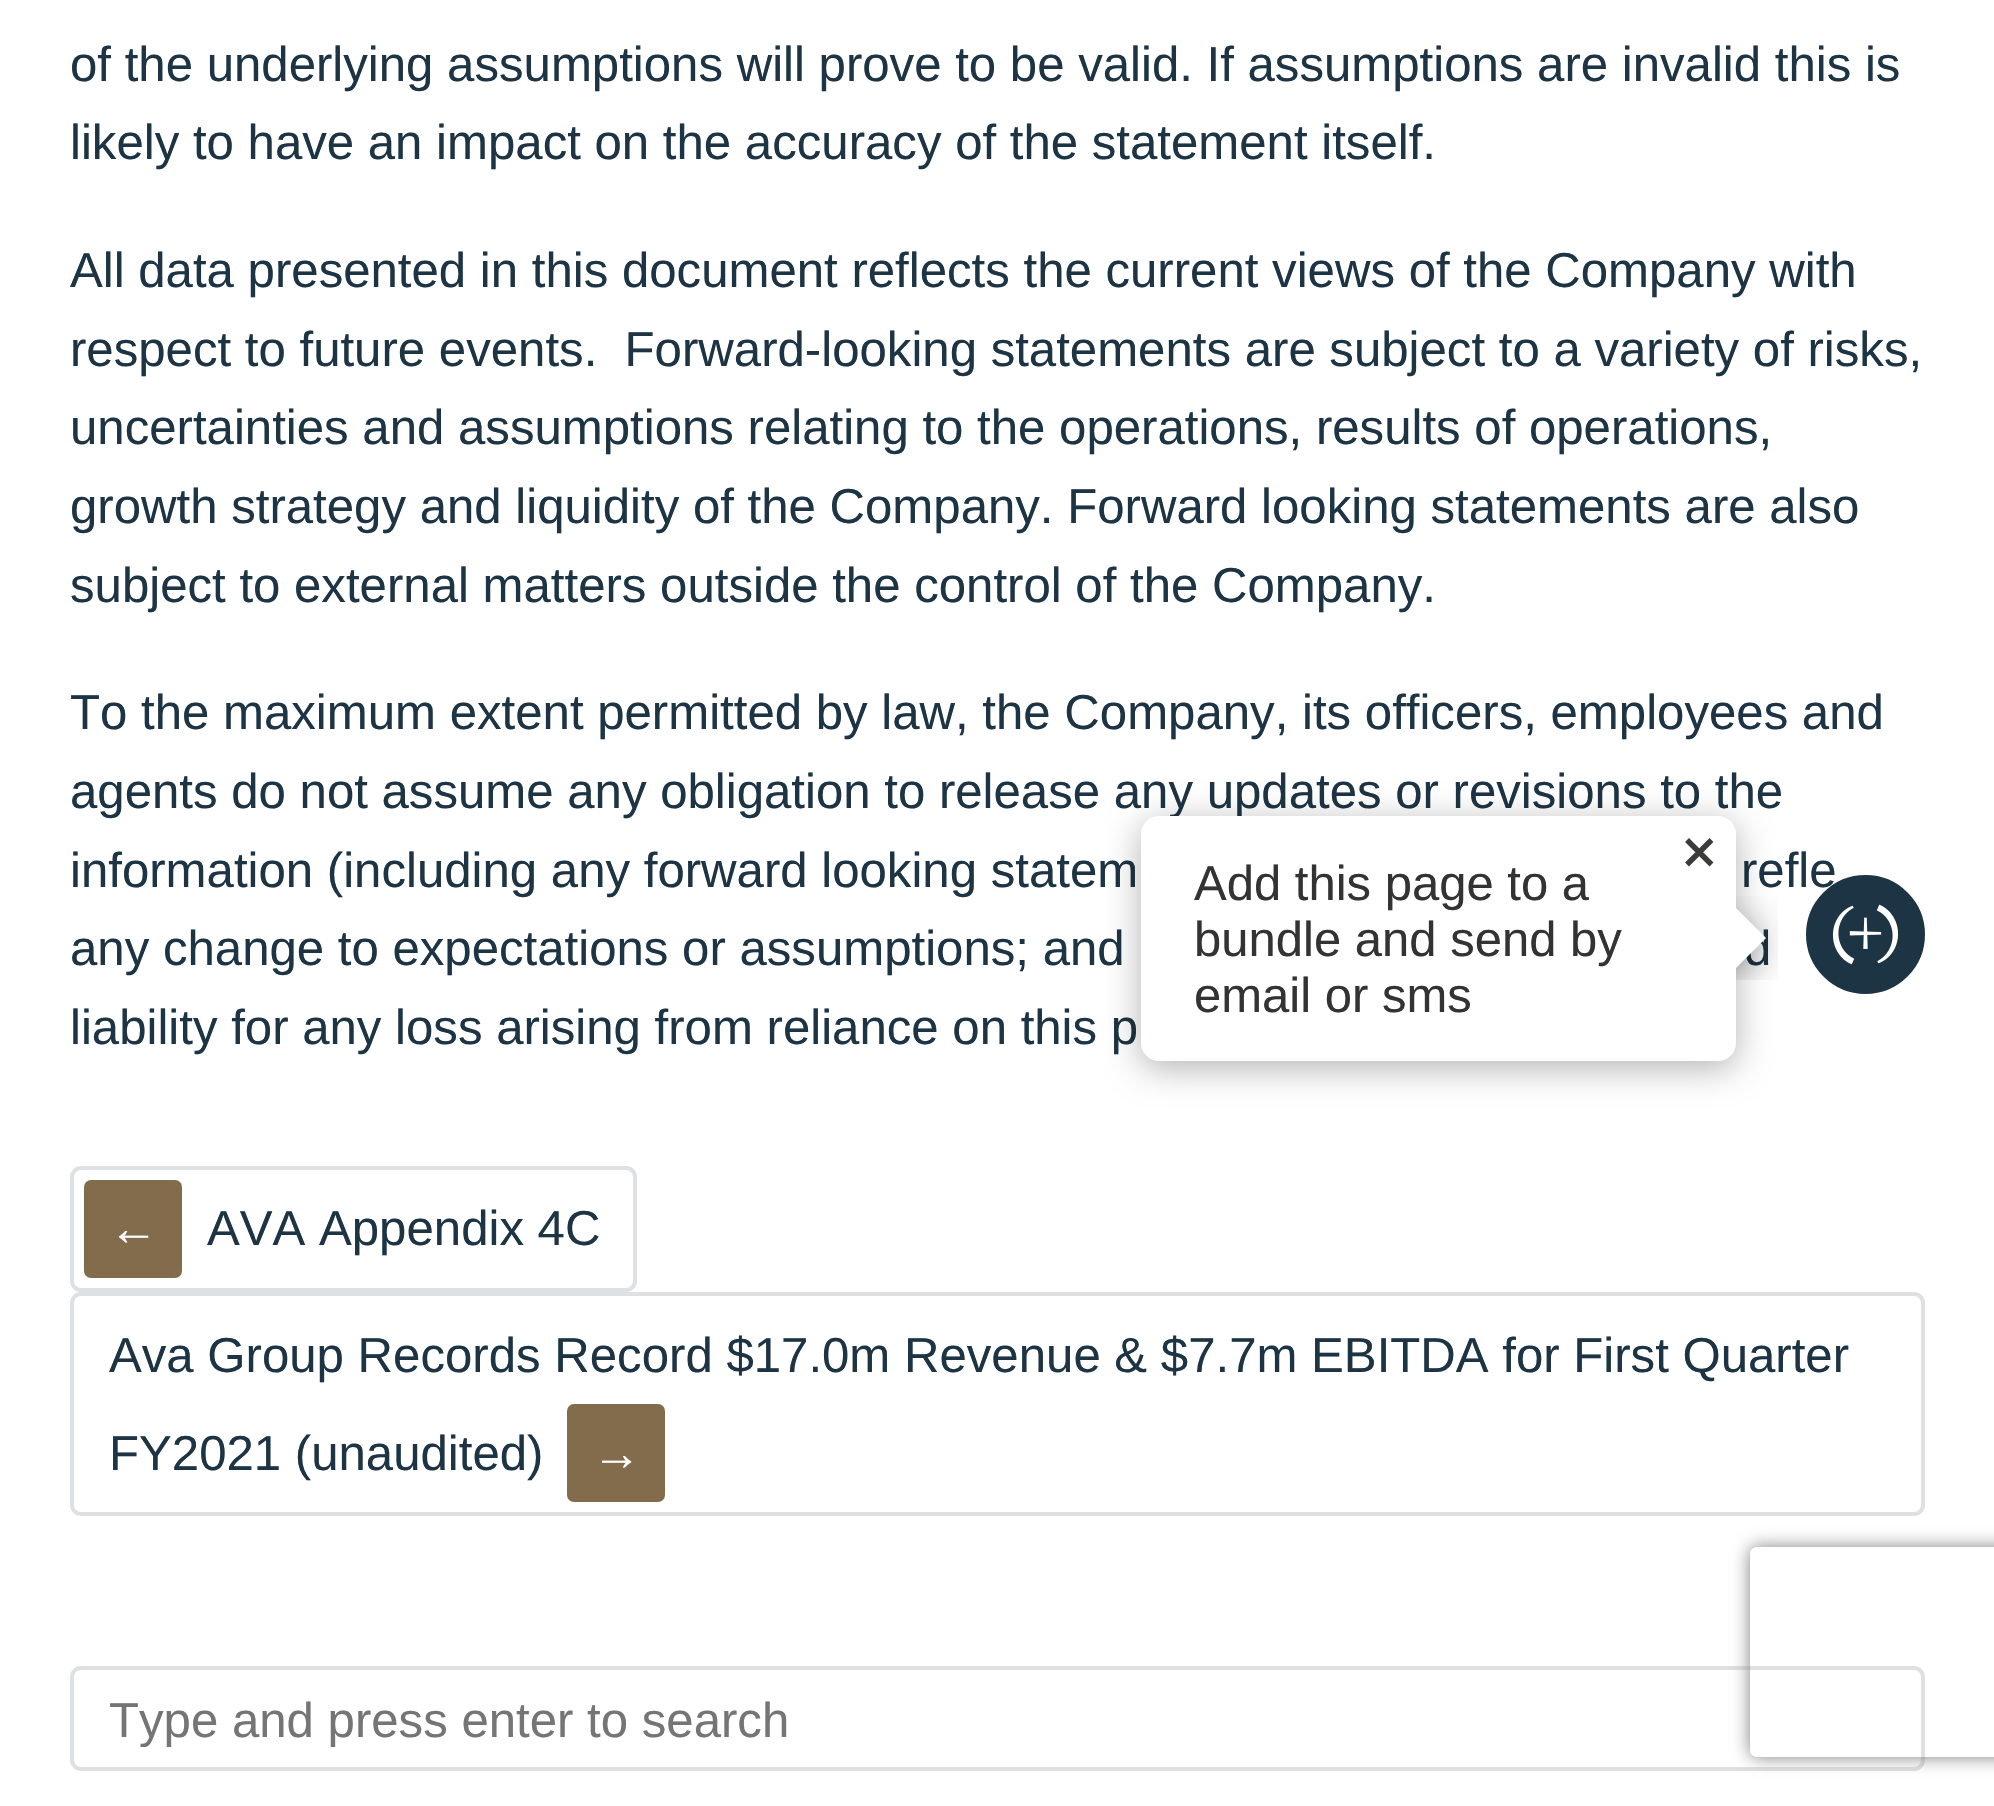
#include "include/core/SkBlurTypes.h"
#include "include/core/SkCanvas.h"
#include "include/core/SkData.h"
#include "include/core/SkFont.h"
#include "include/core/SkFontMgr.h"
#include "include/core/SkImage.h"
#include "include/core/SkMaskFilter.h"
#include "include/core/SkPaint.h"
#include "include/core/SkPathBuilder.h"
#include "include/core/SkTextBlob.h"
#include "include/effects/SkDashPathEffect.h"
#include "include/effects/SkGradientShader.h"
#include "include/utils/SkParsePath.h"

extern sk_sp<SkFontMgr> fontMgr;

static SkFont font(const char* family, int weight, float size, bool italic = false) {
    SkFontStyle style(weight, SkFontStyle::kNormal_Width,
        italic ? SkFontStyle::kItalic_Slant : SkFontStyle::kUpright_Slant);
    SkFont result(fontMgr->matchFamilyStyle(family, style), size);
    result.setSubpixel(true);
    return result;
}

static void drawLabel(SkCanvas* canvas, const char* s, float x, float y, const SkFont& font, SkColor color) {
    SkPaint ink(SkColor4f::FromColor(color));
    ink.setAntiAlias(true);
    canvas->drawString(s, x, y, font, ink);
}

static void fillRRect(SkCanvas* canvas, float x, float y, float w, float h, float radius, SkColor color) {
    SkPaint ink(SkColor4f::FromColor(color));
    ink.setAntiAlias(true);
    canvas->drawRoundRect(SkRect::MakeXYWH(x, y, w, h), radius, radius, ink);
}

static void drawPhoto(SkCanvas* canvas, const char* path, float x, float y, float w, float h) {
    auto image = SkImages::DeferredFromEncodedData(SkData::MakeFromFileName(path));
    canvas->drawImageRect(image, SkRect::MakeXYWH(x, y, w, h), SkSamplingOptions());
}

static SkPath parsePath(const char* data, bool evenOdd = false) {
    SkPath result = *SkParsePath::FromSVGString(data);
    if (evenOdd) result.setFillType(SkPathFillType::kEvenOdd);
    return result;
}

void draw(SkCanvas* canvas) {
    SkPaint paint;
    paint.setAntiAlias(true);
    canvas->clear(0xFFFFFFFF);
    SkFont font1 = font("Liberation Sans", 400, 49.15f);
    drawLabel(canvas, "of the underlying assumptions will prove to be valid. If assumptions are invalid this is", 70, 81, font1, 0xFF1D3444);
    drawLabel(canvas, "likely to have an impact on the accuracy of the statement itself.", 70, 159, font1, 0xFF1D3444);
    drawLabel(canvas, "All data presented in this document reflects the current views of the Company with", 70, 287, font1, 0xFF1D3444);
    drawLabel(canvas, "respect to future events.  Forward-looking statements are subject to a variety of risks,", 70, 366, font1, 0xFF1D3444);
    drawLabel(canvas, "uncertainties and assumptions relating to the operations, results of operations,", 70, 444, font1, 0xFF1D3444);
    drawLabel(canvas, "growth strategy and liquidity of the Company. Forward looking statements are also", 70, 523, font1, 0xFF1D3444);
    drawLabel(canvas, "subject to external matters outside the control of the Company.", 70, 602, font1, 0xFF1D3444);
    drawLabel(canvas, "To the maximum extent permitted by law, the Company, its officers, employees and", 70, 729, font1, 0xFF1D3444);
    drawLabel(canvas, "agents do not assume any obligation to release any updates or revisions to the", 70, 808, font1, 0xFF1D3444);
    drawLabel(canvas, "information (including any forward looking statem", 70, 887, font1, 0xFF1D3444);
    drawLabel(canvas, "refle", 1741, 887, font1, 0xFF1D3444);
    drawLabel(canvas, "any change to expectations or assumptions; and", 70, 965, font1, 0xFF1D3444);
    drawLabel(canvas, "d", 1744, 965, font1, 0xFF1D3444);
    drawLabel(canvas, "liability for any loss arising from reliance on this p", 70, 1044, font1, 0xFF1D3444);
    paint.setStroke(true);
    paint.setStrokeWidth(4);
    paint.setColor(0xFFDDE1E3);
    canvas->drawRoundRect(SkRect::MakeXYWH(72, 1168, 563, 122), 9, 9, paint);
    fillRRect(canvas, 84, 1180, 98, 98, 7, 0xFF826C4B);
    SkFont font2 = font("Liberation Serif", 400, 49.15f);
    drawLabel(canvas, "←", 109, 1245, font2, 0xFFFFFFFF);
    drawLabel(canvas, "AVA Appendix 4C", 207, 1245, font1, 0xFF1D3444);
    canvas->drawRoundRect(SkRect::MakeXYWH(72, 1294, 1851, 220), 9, 9, paint);
    drawLabel(canvas, "Ava Group Records Record $17.0m Revenue & $7.7m EBITDA for First Quarter", 109, 1372, font1, 0xFF1D3444);
    drawLabel(canvas, "FY2021 (unaudited)", 109, 1470, font1, 0xFF1D3444);
    fillRRect(canvas, 567, 1404, 98, 98, 7, 0xFF826C4B);
    drawLabel(canvas, "→", 592, 1470, font2, 0xFFFFFFFF);
    canvas->drawRoundRect(SkRect::MakeXYWH(72, 1668, 1851, 101), 9, 9, paint);
    canvas->save();
    canvas->clipRect(SkRect::MakeXYWH(109, 1691, 1778, 56));
    drawLabel(canvas, "Type and press enter to search", 109, 1737, font1, 0xFF757575);
    canvas->restore();
    paint.setStroke(false);
    paint.setColor(0x4D000000);
    paint.setMaskFilter(SkMaskFilter::MakeBlur(kNormal_SkBlurStyle, 17.5f));
    canvas->drawRoundRect(SkRect::MakeXYWH(1141, 823, 595, 245), 18, 18, paint);
    paint.setMaskFilter(nullptr);
    fillRRect(canvas, 1141, 816, 595, 245, 18, 0xFFFFFFFF);
    paint.setStroke(true);
    paint.setStrokeWidth(5.5f);
    paint.setColor(0xFF3C3C3B);
    canvas->drawPath(parsePath("M1687 840L1711.5 864.5M1711.5 840L1687 864.5"), paint);
    SkFont font3 = font("Liberation Sans", 400, 49);
    drawLabel(canvas, "Add this page to a", 1194, 900, font3, 0xFF333333);
    drawLabel(canvas, "bundle and send by", 1194, 956, font3, 0xFF333333);
    drawLabel(canvas, "email or sms", 1194, 1012, font3, 0xFF333333);
    paint.setStroke(false);
    paint.setColor(0xFF1D3444);
    canvas->drawCircle(1865.5f, 934.5f, 56, paint);
    paint.setStroke(true);
    paint.setStrokeWidth(7);
    canvas->drawCircle(1865.5f, 934.5f, 56, paint);
    canvas->save();
    canvas->clipRect(SkRect::MakeXYWH(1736, 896, 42, 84));
    paint.setStroke(false);
    paint.setColor(0x66000000);
    paint.setMaskFilter(SkMaskFilter::MakeBlur(kNormal_SkBlurStyle, 17.5f));
    canvas->drawRect(SkRect::MakeXYWH(1715, 924, 42, 42), paint);
    paint.setMaskFilter(nullptr);
    canvas->restore();
    canvas->save();
    canvas->clipRect(SkRect::MakeXYWH(1736, 896, 42, 84));
    paint.setColor(0xFFFFFFFF);
    canvas->drawPath(parsePath("M1706 938L1736 908L1766 938L1736 968Z"), paint);
    canvas->restore();
    drawPhoto(canvas, "assets/img1.png", 1832, 904, 67, 61);
    canvas->save();
    canvas->clipPath(parsePath("M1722 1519H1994V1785H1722ZM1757 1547H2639C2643 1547 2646 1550 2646 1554V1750C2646 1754 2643 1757 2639 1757H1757C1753 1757 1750 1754 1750 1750V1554C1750 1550 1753 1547 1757 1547Z", true), true);
    paint.setColor(0xFF808080);
    paint.setMaskFilter(SkMaskFilter::MakeBlur(kNormal_SkBlurStyle, 9));
    canvas->drawRoundRect(SkRect::MakeXYWH(1750, 1547, 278, 210), 7, 7, paint);
    paint.setMaskFilter(nullptr);
    canvas->restore();
}
